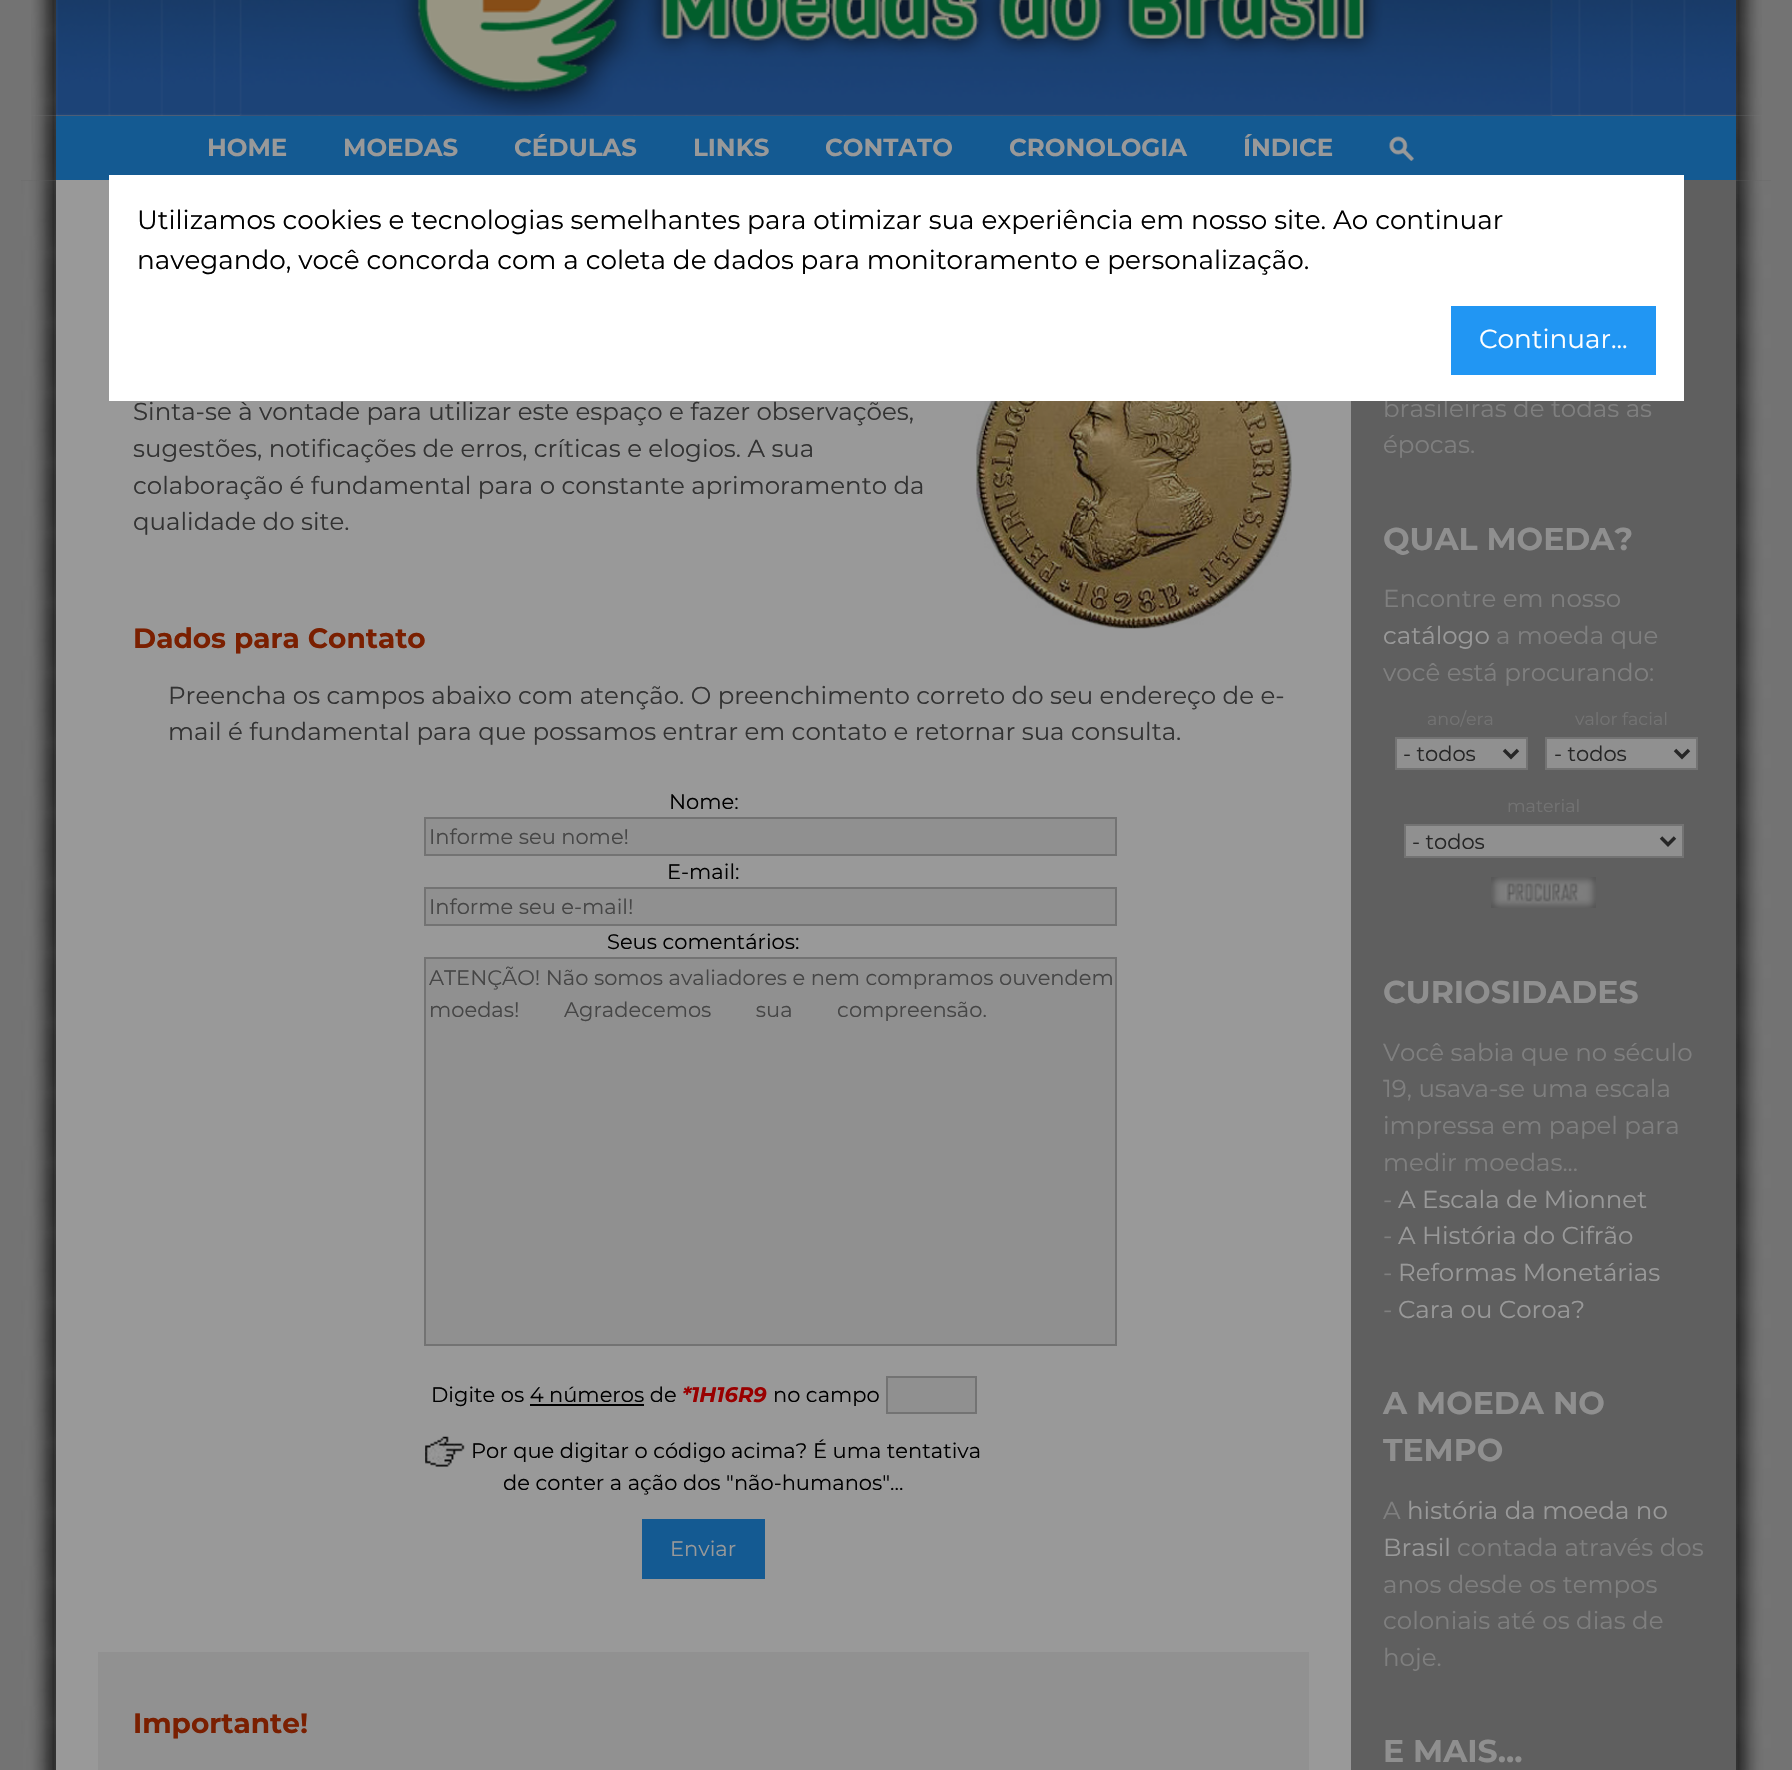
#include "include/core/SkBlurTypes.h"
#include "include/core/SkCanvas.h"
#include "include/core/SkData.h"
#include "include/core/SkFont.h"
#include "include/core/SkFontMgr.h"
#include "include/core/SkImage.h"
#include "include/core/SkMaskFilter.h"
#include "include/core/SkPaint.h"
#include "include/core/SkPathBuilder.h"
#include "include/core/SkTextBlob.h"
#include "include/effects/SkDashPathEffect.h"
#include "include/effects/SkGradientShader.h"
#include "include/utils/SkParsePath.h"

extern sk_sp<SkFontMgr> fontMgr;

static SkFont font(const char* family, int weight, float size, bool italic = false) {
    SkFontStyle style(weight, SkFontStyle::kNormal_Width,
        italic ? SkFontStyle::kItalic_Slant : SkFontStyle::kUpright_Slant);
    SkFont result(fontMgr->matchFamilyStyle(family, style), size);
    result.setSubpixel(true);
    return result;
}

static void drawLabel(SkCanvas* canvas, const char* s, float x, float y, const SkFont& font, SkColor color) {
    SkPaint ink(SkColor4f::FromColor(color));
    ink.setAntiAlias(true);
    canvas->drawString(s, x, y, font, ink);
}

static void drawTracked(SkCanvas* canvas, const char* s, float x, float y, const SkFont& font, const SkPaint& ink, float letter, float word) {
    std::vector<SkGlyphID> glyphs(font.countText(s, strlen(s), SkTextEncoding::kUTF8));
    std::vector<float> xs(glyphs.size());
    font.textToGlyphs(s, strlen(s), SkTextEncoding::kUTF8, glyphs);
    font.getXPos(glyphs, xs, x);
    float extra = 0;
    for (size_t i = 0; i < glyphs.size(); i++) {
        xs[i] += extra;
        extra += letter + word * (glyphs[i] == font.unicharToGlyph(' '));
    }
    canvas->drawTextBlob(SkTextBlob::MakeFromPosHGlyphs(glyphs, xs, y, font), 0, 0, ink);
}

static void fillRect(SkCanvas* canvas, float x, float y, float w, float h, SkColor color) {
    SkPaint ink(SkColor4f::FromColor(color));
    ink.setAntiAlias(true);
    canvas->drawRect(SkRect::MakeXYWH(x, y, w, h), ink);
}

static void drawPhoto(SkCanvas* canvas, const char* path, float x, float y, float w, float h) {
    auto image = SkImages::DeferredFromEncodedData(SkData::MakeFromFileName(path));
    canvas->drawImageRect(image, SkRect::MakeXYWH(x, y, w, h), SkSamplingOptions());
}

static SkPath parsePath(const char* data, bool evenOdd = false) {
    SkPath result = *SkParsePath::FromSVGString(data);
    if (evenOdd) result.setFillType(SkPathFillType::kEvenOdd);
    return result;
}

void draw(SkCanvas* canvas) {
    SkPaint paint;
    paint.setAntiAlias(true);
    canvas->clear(0xFF737373);
    drawPhoto(canvas, "assets/img1.png", 31, 0, 25, 116);
    drawPhoto(canvas, "assets/img2.png", 56, 0, 1680, 116);
    drawPhoto(canvas, "assets/img3.png", 239, 0, 1314, 116);
    drawPhoto(canvas, "assets/img4.png", 1736, 0, 26, 116);
    drawPhoto(canvas, "assets/img5.png", 31, 115, 25, 65);
    fillRect(canvas, 56, 116, 1680, 64, 0xFF145A92);
    SkFont font1 = font("Montserrat", 700, 24.5f);
    drawLabel(canvas, "HOME", 207, 156, font1, 0xFF999999);
    drawLabel(canvas, "MOEDAS", 343, 156, font1, 0xFF999999);
    drawLabel(canvas, "CÉDULAS", 514, 156, font1, 0xFF999999);
    drawLabel(canvas, "LINKS", 693, 156, font1, 0xFF999999);
    drawLabel(canvas, "CONTATO", 825, 156, font1, 0xFF999999);
    drawLabel(canvas, "CRONOLOGIA", 1009, 156, font1, 0xFF999999);
    drawLabel(canvas, "ÍNDICE", 1243, 156, font1, 0xFF999999);
    drawPhoto(canvas, "assets/img6.png", 1389, 136, 25, 25);
    drawPhoto(canvas, "assets/img7.png", 1736, 115, 26, 65);
    fillRect(canvas, 21, 180, 1750, 1590, 0xFF5F5F5F);
    drawPhoto(canvas, "assets/img8.png", 21, 180, 35, 1590);
    fillRect(canvas, 56, 180, 1295, 1590, 0xFF999999);
    SkFont font2 = font("Montserrat", 400, 24.5f);
    drawLabel(canvas, "Sinta-se à vontade para utilizar este espaço e fazer observações,", 133, 420, font2, 0xFF333333);
    drawLabel(canvas, "sugestões, notificações de erros, críticas e elogios. A sua", 133, 457, font2, 0xFF333333);
    drawLabel(canvas, "colaboração é fundamental para o constante aprimoramento da", 133, 494, font2, 0xFF333333);
    drawLabel(canvas, "qualidade do site.", 133, 530, font2, 0xFF333333);
    drawPhoto(canvas, "assets/img9.png", 976, 401, 316, 228);
    SkFont font3 = font("Montserrat", 700, 28);
    drawLabel(canvas, "Dados para Contato", 133, 648, font3, 0xFF7A1F00);
    drawLabel(canvas, "Preencha os campos abaixo com atenção. O preenchimento correto do seu endereço de e-", 168, 704, font2, 0xFF333333);
    drawLabel(canvas, "mail é fundamental para que possamos entrar em contato e retornar sua consulta.", 168, 740, font2, 0xFF333333);
    SkFont font4 = font("Montserrat", 400, 21);
    drawLabel(canvas, "Nome:", 669, 809, font4, 0xFF000000);
    paint.setColor(0xFF909090);
    canvas->drawRect(SkRect::MakeXYWH(425, 818, 691, 37), paint);
    paint.setStroke(true);
    paint.setStrokeWidth(2);
    paint.setColor(0xFF737373);
    canvas->drawRect(SkRect::MakeXYWH(425, 818, 691, 37), paint);
    drawLabel(canvas, "Informe seu nome!", 429, 844, font4, 0xFF464646);
    drawLabel(canvas, "E-mail:", 667, 879, font4, 0xFF000000);
    paint.setStroke(false);
    paint.setColor(0xFF909090);
    canvas->drawRect(SkRect::MakeXYWH(425, 888, 691, 37), paint);
    paint.setStroke(true);
    paint.setColor(0xFF737373);
    canvas->drawRect(SkRect::MakeXYWH(425, 888, 691, 37), paint);
    drawLabel(canvas, "Informe seu e-mail!", 429, 914, font4, 0xFF464646);
    drawLabel(canvas, "Seus comentários:", 607, 949, font4, 0xFF000000);
    paint.setStroke(false);
    paint.setColor(0xFF909090);
    canvas->drawRect(SkRect::MakeXYWH(425, 958, 691, 387), paint);
    paint.setStroke(true);
    paint.setColor(0xFF737373);
    canvas->drawRect(SkRect::MakeXYWH(425, 958, 691, 387), paint);
    drawLabel(canvas, "ATENÇÃO! Não somos avaliadores e nem compramos ouvendem", 429, 985, font4, 0xFF464646);
    paint.setStroke(false);
    paint.setColor(0xFF464646);
    drawTracked(canvas, "moedas! Agradecemos sua compreensão.", 429, 1017, font4, paint, 0, 39);
    drawLabel(canvas, "Digite os 4 números de", 431, 1402, font4, 0xFF000000);
    SkFont font5 = font("Montserrat", 700, 21, true);
    drawLabel(canvas, "*1H16R9", 682, 1402, font5, 0xFF990000);
    drawLabel(canvas, "no campo", 773, 1402, font4, 0xFF000000);
    paint.setColor(0xFF909090);
    canvas->drawRect(SkRect::MakeXYWH(887, 1377, 89, 36), paint);
    paint.setStroke(true);
    paint.setColor(0xFF737373);
    canvas->drawRect(SkRect::MakeXYWH(887, 1377, 89, 36), paint);
    fillRect(canvas, 530, 1404, 114, 2, 0xFF000000);
    drawPhoto(canvas, "assets/img10.png", 425, 1436, 40, 31);
    drawLabel(canvas, "Por que digitar o código acima? É uma tentativa", 471, 1458, font4, 0xFF000000);
    drawLabel(canvas, "de conter a ação dos \"não-humanos\"...", 503, 1490, font4, 0xFF000000);
    fillRect(canvas, 642, 1519, 123, 60, 0xFF145A92);
    drawLabel(canvas, "Enviar", 670, 1556, font4, 0xFF999999);
    fillRect(canvas, 98, 1652, 1211, 118, 0xFF919191);
    drawLabel(canvas, "Importante!", 133, 1733, font3, 0xFF7A1F00);
    drawLabel(canvas, "brasileiras de todas as", 1383, 417, font2, 0xFF7F7F7F);
    drawLabel(canvas, "épocas.", 1383, 453, font2, 0xFF7F7F7F);
    SkFont font6 = font("Montserrat", 700, 31.5f);
    drawLabel(canvas, "QUAL MOEDA?", 1383, 550, font6, 0xFF8F8F8F);
    drawLabel(canvas, "Encontre em nosso", 1383, 607, font2, 0xFF7F7F7F);
    drawLabel(canvas, "catálogo", 1383, 644, font2, 0xFF999999);
    drawLabel(canvas, "a moeda que", 1496, 644, font2, 0xFF7F7F7F);
    drawLabel(canvas, "você está procurando:", 1383, 681, font2, 0xFF7F7F7F);
    SkFont font7 = font("Montserrat", 400, 17.5f);
    drawLabel(canvas, "ano/era", 1427, 725, font7, 0xFF737373);
    paint.setStroke(false);
    paint.setColor(0xFF909090);
    canvas->drawRect(SkRect::MakeXYWH(1396, 738, 131, 31), paint);
    paint.setStroke(true);
    paint.setColor(0xFF737373);
    canvas->drawRect(SkRect::MakeXYWH(1396, 738, 131, 31), paint);
    paint.setStrokeWidth(3.5f);
    paint.setColor(0xFF262626);
    canvas->drawPath(parsePath("M1504 750L1511 757L1518 750"), paint);
    drawLabel(canvas, "- todos", 1403, 761, font4, 0xFF262626);
    drawLabel(canvas, "valor facial", 1575, 725, font7, 0xFF737373);
    paint.setStroke(false);
    paint.setColor(0xFF909090);
    canvas->drawRect(SkRect::MakeXYWH(1546, 738, 151, 31), paint);
    paint.setStroke(true);
    paint.setStrokeWidth(2);
    paint.setColor(0xFF737373);
    canvas->drawRect(SkRect::MakeXYWH(1546, 738, 151, 31), paint);
    paint.setStrokeWidth(3.5f);
    paint.setColor(0xFF262626);
    canvas->drawPath(parsePath("M1675 750L1682 757L1689 750"), paint);
    drawLabel(canvas, "- todos", 1554, 761, font4, 0xFF262626);
    drawLabel(canvas, "material", 1507, 812, font7, 0xFF737373);
    paint.setStroke(false);
    paint.setColor(0xFF909090);
    canvas->drawRect(SkRect::MakeXYWH(1405, 825, 278, 32), paint);
    paint.setStroke(true);
    paint.setStrokeWidth(2);
    paint.setColor(0xFF737373);
    canvas->drawRect(SkRect::MakeXYWH(1405, 825, 278, 32), paint);
    paint.setStrokeWidth(3.5f);
    paint.setColor(0xFF262626);
    canvas->drawPath(parsePath("M1661 837.5L1668 844.5L1675 837.5"), paint);
    drawLabel(canvas, "- todos", 1412, 849, font4, 0xFF262626);
    drawPhoto(canvas, "assets/img11.png", 1491, 877, 105, 31);
    drawLabel(canvas, "CURIOSIDADES", 1383, 1003, font6, 0xFF8F8F8F);
    drawLabel(canvas, "Você sabia que no século", 1383, 1061, font2, 0xFF7F7F7F);
    drawLabel(canvas, "19, usava-se uma escala", 1383, 1097, font2, 0xFF7F7F7F);
    drawLabel(canvas, "impressa em papel para", 1383, 1134, font2, 0xFF7F7F7F);
    drawLabel(canvas, "medir moedas...", 1383, 1171, font2, 0xFF7F7F7F);
    drawLabel(canvas, "-", 1383, 1208, font2, 0xFF7F7F7F);
    drawLabel(canvas, "A Escala de Mionnet", 1398, 1208, font2, 0xFF999999);
    drawLabel(canvas, "-", 1383, 1244, font2, 0xFF7F7F7F);
    drawLabel(canvas, "A História do Cifrão", 1398, 1244, font2, 0xFF999999);
    drawLabel(canvas, "-", 1383, 1281, font2, 0xFF7F7F7F);
    drawLabel(canvas, "Reformas Monetárias", 1398, 1281, font2, 0xFF999999);
    drawLabel(canvas, "-", 1383, 1318, font2, 0xFF7F7F7F);
    drawLabel(canvas, "Cara ou Coroa?", 1398, 1318, font2, 0xFF999999);
    drawLabel(canvas, "A MOEDA NO", 1383, 1414, font6, 0xFF8F8F8F);
    drawLabel(canvas, "TEMPO", 1383, 1461, font6, 0xFF8F8F8F);
    drawLabel(canvas, "A", 1383, 1519, font2, 0xFF7F7F7F);
    drawLabel(canvas, "história da moeda no", 1407, 1519, font2, 0xFF999999);
    drawLabel(canvas, "Brasil", 1383, 1556, font2, 0xFF999999);
    drawLabel(canvas, "contada através dos", 1457, 1556, font2, 0xFF7F7F7F);
    drawLabel(canvas, "anos desde os tempos", 1383, 1593, font2, 0xFF7F7F7F);
    drawLabel(canvas, "coloniais até os dias de", 1383, 1629, font2, 0xFF7F7F7F);
    drawLabel(canvas, "hoje.", 1383, 1666, font2, 0xFF7F7F7F);
    drawLabel(canvas, "E MAIS...", 1383, 1762, font6, 0xFF8F8F8F);
    drawPhoto(canvas, "assets/img12.png", 1736, 180, 35, 1590);
    fillRect(canvas, 109, 175, 1575, 226, 0xFFFFFFFF);
    SkFont font8 = font("Montserrat", 400, 26.25f);
    drawLabel(canvas, "Utilizamos cookies e tecnologias semelhantes para otimizar sua experiência em nosso site. Ao continuar", 137, 229, font8, 0xFF000000);
    drawLabel(canvas, "navegando, você concorda com a coleta de dados para monitoramento e personalização.", 137, 269, font8, 0xFF000000);
    fillRect(canvas, 1451, 306, 205, 69, 0xFF2196F3);
    drawLabel(canvas, "Continuar...", 1479, 348, font8, 0xFFFFFFFF);
}
